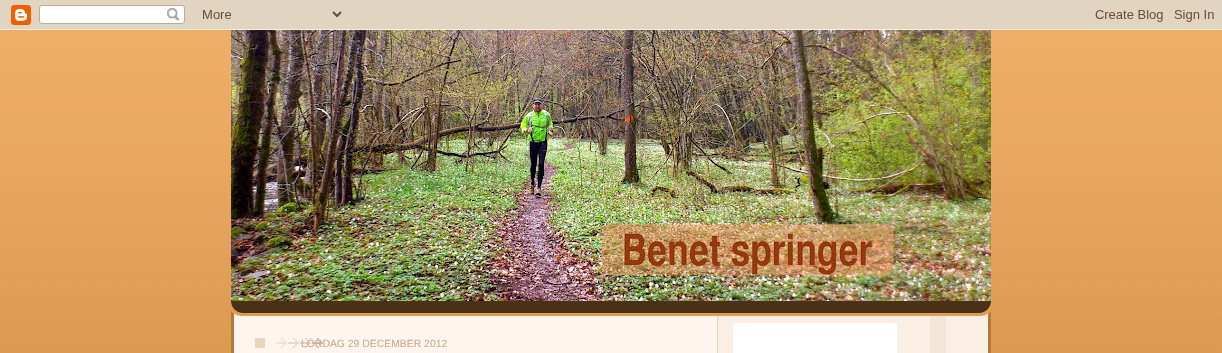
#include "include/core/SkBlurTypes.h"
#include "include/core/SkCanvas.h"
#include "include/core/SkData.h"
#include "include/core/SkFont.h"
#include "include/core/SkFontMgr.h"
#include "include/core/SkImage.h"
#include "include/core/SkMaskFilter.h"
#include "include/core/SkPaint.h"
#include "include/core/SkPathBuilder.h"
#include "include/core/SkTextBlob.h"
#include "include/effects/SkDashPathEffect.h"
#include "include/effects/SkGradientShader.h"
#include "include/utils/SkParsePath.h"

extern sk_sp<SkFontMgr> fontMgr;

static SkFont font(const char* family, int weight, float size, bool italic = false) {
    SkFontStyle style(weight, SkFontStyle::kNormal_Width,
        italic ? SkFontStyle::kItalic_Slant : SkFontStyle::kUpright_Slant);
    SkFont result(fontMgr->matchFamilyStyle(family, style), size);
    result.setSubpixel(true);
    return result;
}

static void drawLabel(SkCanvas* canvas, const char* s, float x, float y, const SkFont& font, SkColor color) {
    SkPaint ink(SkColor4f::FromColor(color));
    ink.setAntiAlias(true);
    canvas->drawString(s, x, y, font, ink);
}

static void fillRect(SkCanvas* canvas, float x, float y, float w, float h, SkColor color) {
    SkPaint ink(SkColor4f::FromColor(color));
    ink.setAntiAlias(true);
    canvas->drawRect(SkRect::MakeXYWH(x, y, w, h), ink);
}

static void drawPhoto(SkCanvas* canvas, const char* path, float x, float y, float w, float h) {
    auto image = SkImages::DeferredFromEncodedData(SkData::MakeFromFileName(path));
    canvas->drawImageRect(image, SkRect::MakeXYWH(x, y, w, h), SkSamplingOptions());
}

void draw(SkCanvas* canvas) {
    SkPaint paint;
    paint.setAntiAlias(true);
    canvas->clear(0xFFFFFFFF);
    drawPhoto(canvas, "assets/img1.png", 0, 30, 1222, 323);
    drawPhoto(canvas, "assets/img2.png", 0, 0, 1222, 30);
    drawPhoto(canvas, "assets/img3.png", 231, 301, 760, 15);
    drawPhoto(canvas, "assets/img4.png", 231, 30, 760, 271);
    drawPhoto(canvas, "assets/img5.png", 231, 316, 760, 37);
    fillRect(canvas, 234, 316, 483, 37, 0xFFFEF6EE);
    fillRect(canvas, 255, 338, 10, 10, 0xFFEBD4BD);
    drawPhoto(canvas, "assets/img6.png", 276, 338, 47, 10);
    SkFont font1 = font("Liberation Sans", 400, 10.4f);
    drawLabel(canvas, "LÖRDAG 29 DECEMBER 2012", 301, 347, font1, 0xFFC8AB8F);
    fillRect(canvas, 719, 316, 269, 37, 0xFFFBEFE3);
    fillRect(canvas, 930, 316, 16, 37, 0xFFF3E5D7);
    drawPhoto(canvas, "assets/img7.png", 733, 323, 164, 30);
}
